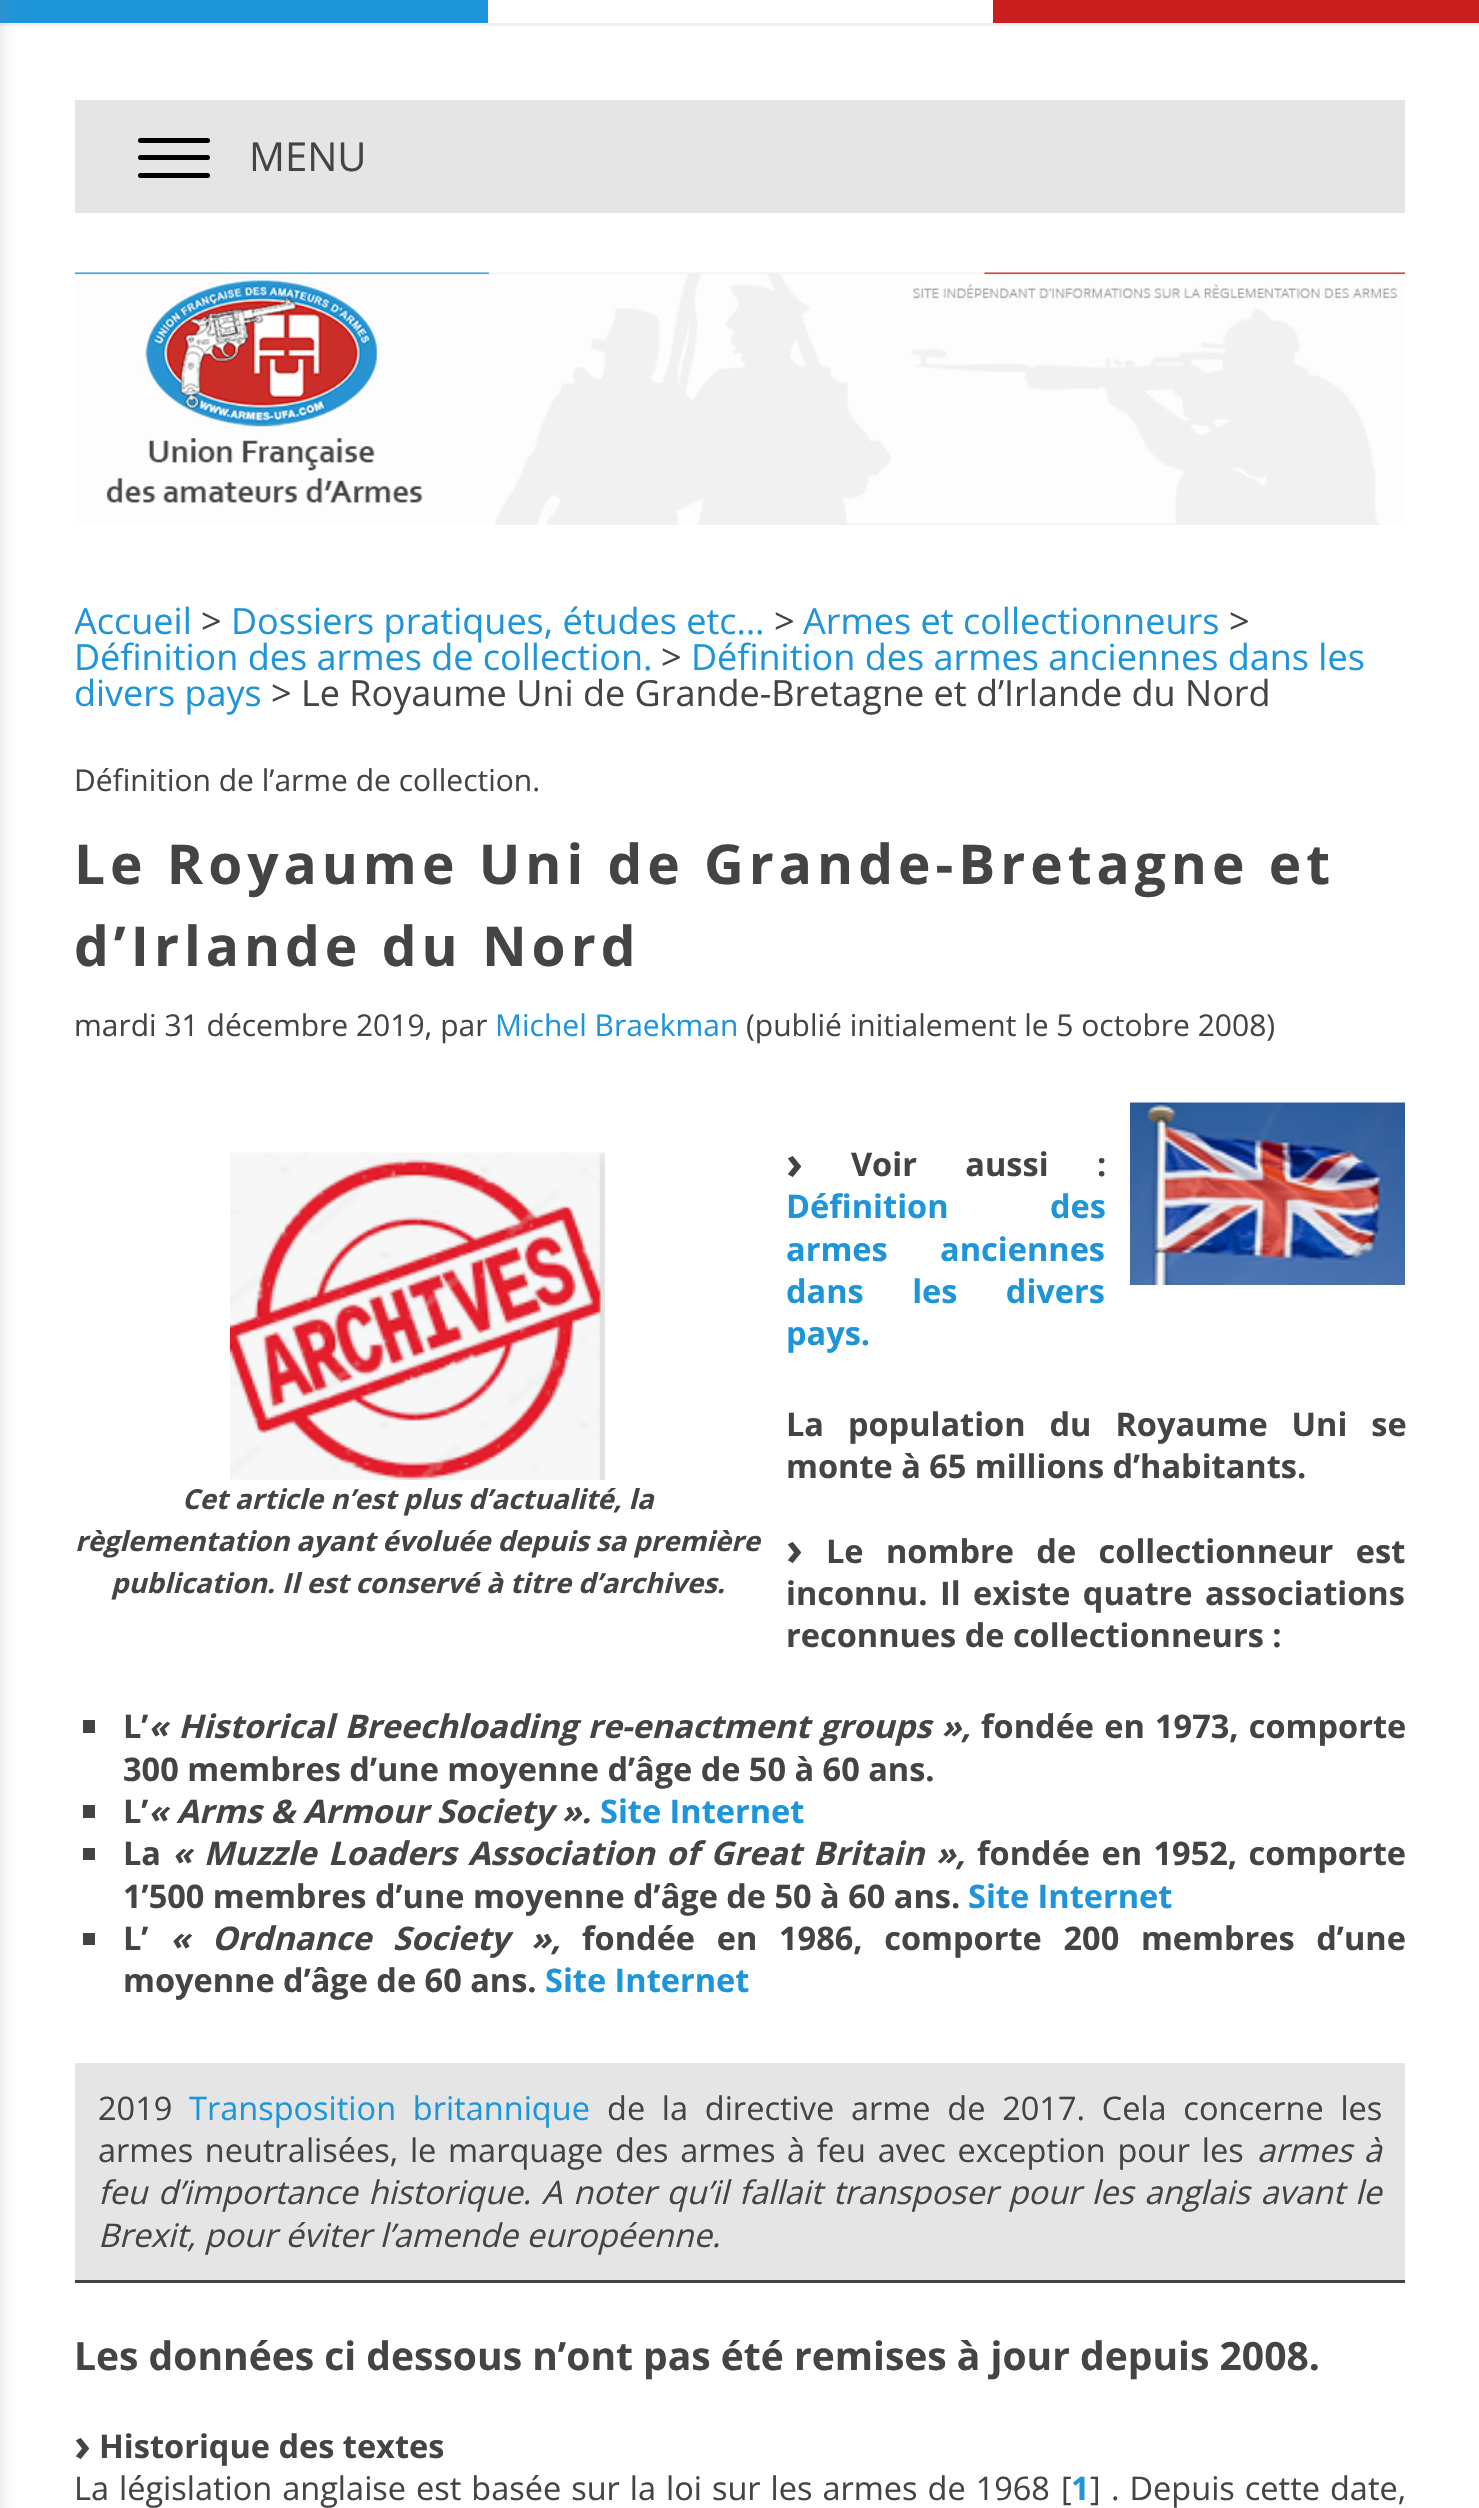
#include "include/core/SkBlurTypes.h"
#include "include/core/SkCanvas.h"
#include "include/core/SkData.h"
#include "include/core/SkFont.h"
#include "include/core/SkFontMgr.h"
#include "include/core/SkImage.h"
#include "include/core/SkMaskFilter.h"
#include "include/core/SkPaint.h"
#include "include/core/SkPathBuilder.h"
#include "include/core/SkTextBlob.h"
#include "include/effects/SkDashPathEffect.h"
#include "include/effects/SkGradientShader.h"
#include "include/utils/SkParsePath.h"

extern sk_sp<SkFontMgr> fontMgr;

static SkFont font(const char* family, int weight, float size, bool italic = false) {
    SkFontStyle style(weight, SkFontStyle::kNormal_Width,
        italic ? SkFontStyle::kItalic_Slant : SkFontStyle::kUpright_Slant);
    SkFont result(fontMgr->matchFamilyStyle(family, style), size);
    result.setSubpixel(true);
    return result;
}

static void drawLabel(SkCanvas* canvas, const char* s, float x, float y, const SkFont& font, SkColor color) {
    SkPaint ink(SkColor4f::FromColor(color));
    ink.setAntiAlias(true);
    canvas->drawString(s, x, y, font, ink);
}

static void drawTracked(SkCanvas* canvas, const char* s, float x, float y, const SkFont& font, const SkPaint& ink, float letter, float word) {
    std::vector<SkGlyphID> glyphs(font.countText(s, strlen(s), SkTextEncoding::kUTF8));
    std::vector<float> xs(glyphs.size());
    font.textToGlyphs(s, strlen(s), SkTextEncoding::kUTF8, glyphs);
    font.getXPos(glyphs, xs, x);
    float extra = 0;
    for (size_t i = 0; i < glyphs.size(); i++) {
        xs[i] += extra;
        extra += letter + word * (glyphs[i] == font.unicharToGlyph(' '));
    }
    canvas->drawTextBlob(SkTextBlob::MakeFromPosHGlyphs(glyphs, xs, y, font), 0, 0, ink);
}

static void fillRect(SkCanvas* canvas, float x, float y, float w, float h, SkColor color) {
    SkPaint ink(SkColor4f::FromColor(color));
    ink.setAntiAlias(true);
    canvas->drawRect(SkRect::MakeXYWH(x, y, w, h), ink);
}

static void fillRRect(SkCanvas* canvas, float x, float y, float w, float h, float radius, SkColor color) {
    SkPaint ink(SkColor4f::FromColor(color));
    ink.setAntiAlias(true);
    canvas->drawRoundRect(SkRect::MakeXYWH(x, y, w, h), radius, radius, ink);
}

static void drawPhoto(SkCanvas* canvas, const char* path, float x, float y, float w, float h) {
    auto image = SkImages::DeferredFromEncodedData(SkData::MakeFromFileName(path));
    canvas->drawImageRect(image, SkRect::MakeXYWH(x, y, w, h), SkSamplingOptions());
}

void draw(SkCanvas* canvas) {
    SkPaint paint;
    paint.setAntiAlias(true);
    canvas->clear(0xFFFFFFFF);
    fillRect(canvas, 0, 23, 1479, 3, 0xFFEFEFEF);
    fillRect(canvas, 0, 0, 488, 23, 0xFF1F95D9);
    fillRect(canvas, 993, 0, 486, 23, 0xFFC91F1F);
    fillRect(canvas, 75, 100, 1330, 113, 0xFFE6E5E5);
    paint.setColor(0xFF85888C);
    paint.setMaskFilter(SkMaskFilter::MakeBlur(kNormal_SkBlurStyle, 12.5f));
    canvas->drawRect(SkRect::MakeXYWH(-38, -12, 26, 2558), paint);
    paint.setMaskFilter(nullptr);
    fillRRect(canvas, 138, 138, 72, 5, 2.5f, 0xFF000000);
    fillRRect(canvas, 138, 155, 72, 5, 2.5f, 0xFF000000);
    SkFont font1 = font("Open Sans", 400, 40);
    drawLabel(canvas, "MENU", 249, 171, font1, 0xFF444444);
    fillRRect(canvas, 138, 173, 72, 5, 2.5f, 0xFF000000);
    drawPhoto(canvas, "assets/img1.png", 75, 272, 1330, 253);
    canvas->save();
    canvas->clipRect(SkRect::MakeXYWH(75, 605, 1330, 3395));
    SkFont font2 = font("Open Sans", 400, 36);
    drawLabel(canvas, "Accueil", 74, 634, font2, 0xFF1F95D9);
    canvas->restore();
    drawLabel(canvas, ">", 201, 634, font2, 0xFF444444);
    drawLabel(canvas, "Dossiers pratiques, études etc…", 231, 634, font2, 0xFF1F95D9);
    drawLabel(canvas, ">", 774, 634, font2, 0xFF444444);
    drawLabel(canvas, "Armes et collectionneurs", 803, 634, font2, 0xFF1F95D9);
    drawLabel(canvas, ">", 1229, 634, font2, 0xFF444444);
    drawLabel(canvas, "Définition des armes de collection.", 74, 670, font2, 0xFF1F95D9);
    drawLabel(canvas, ">", 661, 670, font2, 0xFF444444);
    drawLabel(canvas, "Définition des armes anciennes dans les", 691, 670, font2, 0xFF1F95D9);
    drawLabel(canvas, "divers pays", 74, 706, font2, 0xFF1F95D9);
    drawLabel(canvas, "> Le Royaume Uni de Grande-Bretagne et d’Irlande du Nord", 271, 706, font2, 0xFF444444);
    SkFont font3 = font("Open Sans", 400, 30);
    drawLabel(canvas, "Définition de l’arme de collection.", 74, 791, font3, 0xFF444444);
    SkFont font4 = font("Open Sans", 700, 55);
    paint.setColor(0xFF444444);
    drawTracked(canvas, "Le Royaume Uni de Grande-Bretagne et", 74, 884, font4, paint, 5, 0);
    drawTracked(canvas, "d’Irlande du Nord", 74, 966, font4, paint, 5, 0);
    drawLabel(canvas, "mardi 31 décembre 2019, par", 74, 1036, font3, 0xFF444444);
    drawLabel(canvas, "Michel Braekman", 495, 1036, font3, 0xFF1F95D9);
    drawLabel(canvas, "(publié initialement le 5 octobre 2008)", 746, 1036, font3, 0xFF444444);
    drawPhoto(canvas, "assets/img2.png", 1130, 1102, 275, 183);
    SkFont font5 = font("Open Sans", 700, 46);
    drawLabel(canvas, "›", 786, 1179, font5, 0xFF444444);
    SkFont font6 = font("Open Sans", 700, 32.5f);
    drawTracked(canvas, "Voir aussi :", 851, 1176, font6, paint, 0, 40);
    paint.setColor(0xFF1F95D9);
    drawTracked(canvas, "Définition des", 786, 1218, font6, paint, 0, 93);
    drawTracked(canvas, "armes anciennes", 786, 1261, font6, paint, 0, 44);
    drawTracked(canvas, "dans les divers", 786, 1303, font6, paint, 0, 40);
    drawLabel(canvas, "pays.", 786, 1345, font6, 0xFF1F95D9);
    drawPhoto(canvas, "assets/img3.png", 230, 1152, 375, 328);
    SkFont font7 = font("Open Sans", 700, 27.5f, true);
    drawLabel(canvas, "Cet article n’est plus d’actualité, la", 182, 1509, font7, 0xFF444444);
    drawLabel(canvas, "règlementation ayant évoluée depuis sa première", 75, 1551, font7, 0xFF444444);
    drawLabel(canvas, "publication. Il est conservé à titre d’archives.", 111, 1593, font7, 0xFF444444);
    paint.setColor(0xFF444444);
    drawTracked(canvas, "La population du Royaume Uni se", 786, 1436, font6, paint, 0, 15.5f);
    drawLabel(canvas, "monte à 65 millions d’habitants.", 786, 1478, font6, 0xFF444444);
    drawLabel(canvas, "›", 786, 1565, font5, 0xFF444444);
    drawTracked(canvas, "Le nombre de collectionneur est", 826, 1563, font6, paint, 0, 14);
    drawTracked(canvas, "inconnu. Il existe quatre associations", 786, 1605, font6, paint, 0, 4);
    drawLabel(canvas, "reconnues de collectionneurs :", 786, 1647, font6, 0xFF444444);
    fillRect(canvas, 83, 1720, 12, 13, 0xFF444444);
    drawLabel(canvas, "L’", 123, 1738, font6, 0xFF444444);
    SkFont font8 = font("Open Sans", 700, 32.5f, true);
    drawTracked(canvas, "« Historical Breechloading re-enactment groups »,", 148, 1738, font8, paint, 0, 1.75f);
    drawTracked(canvas, "fondée en 1973, comporte", 981, 1738, font6, paint, 0, 1.75f);
    drawLabel(canvas, "300 membres d’une moyenne d’âge de 50 à 60 ans.", 123, 1781, font6, 0xFF444444);
    fillRect(canvas, 83, 1805, 12, 13, 0xFF444444);
    drawLabel(canvas, "L’", 123, 1823, font6, 0xFF444444);
    drawLabel(canvas, "« Arms & Armour Society ».", 148, 1823, font8, 0xFF444444);
    drawLabel(canvas, "Site Internet", 600, 1823, font6, 0xFF1F95D9);
    fillRect(canvas, 83, 1848, 12, 12, 0xFF444444);
    drawLabel(canvas, "La", 123, 1865, font6, 0xFF444444);
    drawTracked(canvas, "« Muzzle Loaders Association of Great Britain »,", 172, 1865, font8, paint, 0, 3);
    drawTracked(canvas, "fondée en 1952, comporte", 977, 1865, font6, paint, 0, 3);
    drawLabel(canvas, "1’500 membres d’une moyenne d’âge de 50 à 60 ans.", 123, 1908, font6, 0xFF444444);
    drawLabel(canvas, "Site Internet", 968, 1908, font6, 0xFF1F95D9);
    fillRect(canvas, 83, 1933, 12, 12, 0xFF444444);
    drawLabel(canvas, "L’", 123, 1950, font6, 0xFF444444);
    drawTracked(canvas, "« Ordnance Society »,", 170, 1950, font8, paint, 0, 13.25f);
    drawTracked(canvas, "fondée en 1986, comporte 200 membres d’une", 582, 1950, font6, paint, 0, 13.25f);
    drawLabel(canvas, "moyenne d’âge de 60 ans.", 123, 1992, font6, 0xFF444444);
    drawLabel(canvas, "Site Internet", 545, 1992, font6, 0xFF1F95D9);
    fillRect(canvas, 75, 2280, 1330, 3, 0xFF444444);
    fillRect(canvas, 75, 2063, 1330, 217, 0xFFE6E5E5);
    SkFont font9 = font("Open Sans", 400, 32.5f);
    drawLabel(canvas, "2019", 98, 2120, font9, 0xFF444444);
    paint.setColor(0xFF1F95D9);
    drawTracked(canvas, "Transposition britannique", 189, 2120, font9, paint, 0, 8.25f);
    paint.setColor(0xFF444444);
    drawTracked(canvas, "de la directive arme de 2017. Cela concerne les", 607, 2120, font9, paint, 0, 8.25f);
    drawTracked(canvas, "armes neutralisées, le marquage des armes à feu avec exception pour les", 98, 2162, font9, paint, 0, 3.25f);
    SkFont font10 = font("Open Sans", 400, 32.5f, true);
    drawTracked(canvas, "armes à", 1257, 2162, font10, paint, 0, 3.25f);
    drawTracked(canvas, "feu d’importance historique. A noter qu’il fallait transposer pour les anglais avant le", 98, 2204, font10, paint, 0, 2.25f);
    drawLabel(canvas, "Brexit, pour éviter l’amende européenne.", 98, 2247, font10, 0xFF444444);
    SkFont font11 = font("Open Sans", 700, 39);
    drawLabel(canvas, "Les données ci dessous n’ont pas été remises à jour depuis 2008.", 74, 2370, font11, 0xFF444444);
    drawLabel(canvas, "›", 74, 2461, font5, 0xFF444444);
    drawLabel(canvas, "Historique des textes", 99, 2458, font6, 0xFF444444);
    drawTracked(canvas, "La législation anglaise est basée sur la loi sur les armes de 1968", 74, 2500, font9, paint, 0, 1.5f);
    drawLabel(canvas, "[", 1061, 2500, font9, 0xFF444444);
    drawLabel(canvas, "1", 1071, 2500, font6, 0xFF1F95D9);
    drawLabel(canvas, "]", 1090, 2500, font9, 0xFF444444);
    drawTracked(canvas, ". Depuis cette date,", 1111, 2500, font9, paint, 0, 1.5f);
}
